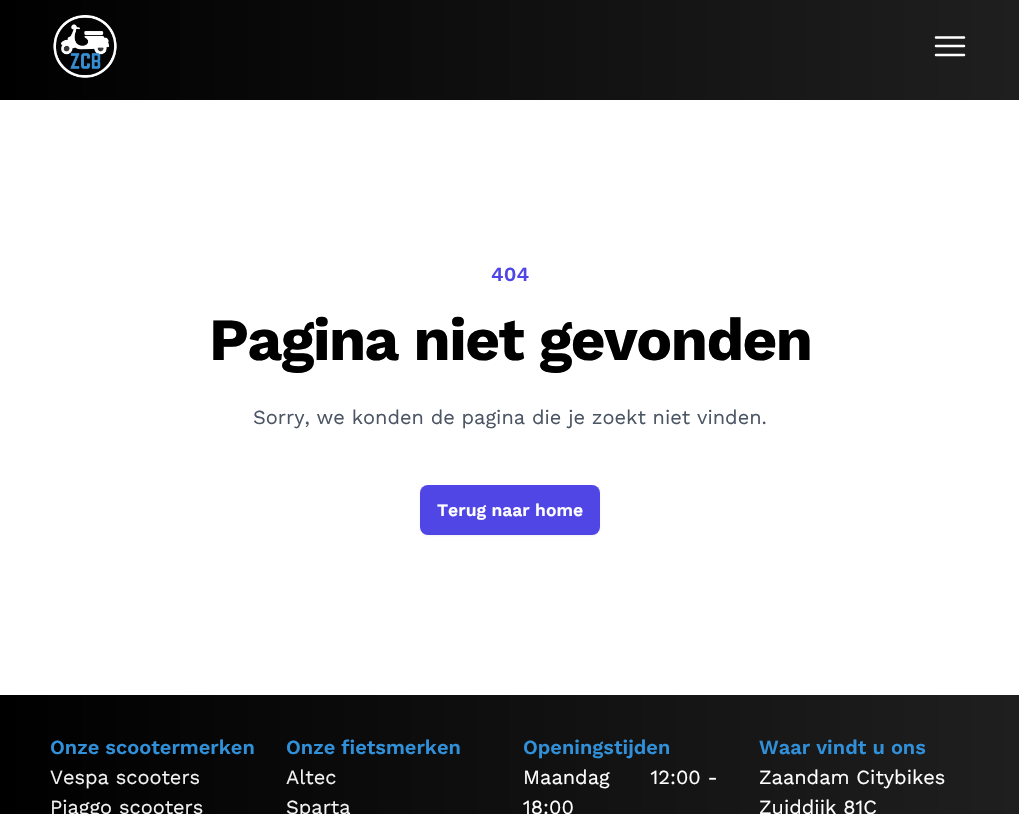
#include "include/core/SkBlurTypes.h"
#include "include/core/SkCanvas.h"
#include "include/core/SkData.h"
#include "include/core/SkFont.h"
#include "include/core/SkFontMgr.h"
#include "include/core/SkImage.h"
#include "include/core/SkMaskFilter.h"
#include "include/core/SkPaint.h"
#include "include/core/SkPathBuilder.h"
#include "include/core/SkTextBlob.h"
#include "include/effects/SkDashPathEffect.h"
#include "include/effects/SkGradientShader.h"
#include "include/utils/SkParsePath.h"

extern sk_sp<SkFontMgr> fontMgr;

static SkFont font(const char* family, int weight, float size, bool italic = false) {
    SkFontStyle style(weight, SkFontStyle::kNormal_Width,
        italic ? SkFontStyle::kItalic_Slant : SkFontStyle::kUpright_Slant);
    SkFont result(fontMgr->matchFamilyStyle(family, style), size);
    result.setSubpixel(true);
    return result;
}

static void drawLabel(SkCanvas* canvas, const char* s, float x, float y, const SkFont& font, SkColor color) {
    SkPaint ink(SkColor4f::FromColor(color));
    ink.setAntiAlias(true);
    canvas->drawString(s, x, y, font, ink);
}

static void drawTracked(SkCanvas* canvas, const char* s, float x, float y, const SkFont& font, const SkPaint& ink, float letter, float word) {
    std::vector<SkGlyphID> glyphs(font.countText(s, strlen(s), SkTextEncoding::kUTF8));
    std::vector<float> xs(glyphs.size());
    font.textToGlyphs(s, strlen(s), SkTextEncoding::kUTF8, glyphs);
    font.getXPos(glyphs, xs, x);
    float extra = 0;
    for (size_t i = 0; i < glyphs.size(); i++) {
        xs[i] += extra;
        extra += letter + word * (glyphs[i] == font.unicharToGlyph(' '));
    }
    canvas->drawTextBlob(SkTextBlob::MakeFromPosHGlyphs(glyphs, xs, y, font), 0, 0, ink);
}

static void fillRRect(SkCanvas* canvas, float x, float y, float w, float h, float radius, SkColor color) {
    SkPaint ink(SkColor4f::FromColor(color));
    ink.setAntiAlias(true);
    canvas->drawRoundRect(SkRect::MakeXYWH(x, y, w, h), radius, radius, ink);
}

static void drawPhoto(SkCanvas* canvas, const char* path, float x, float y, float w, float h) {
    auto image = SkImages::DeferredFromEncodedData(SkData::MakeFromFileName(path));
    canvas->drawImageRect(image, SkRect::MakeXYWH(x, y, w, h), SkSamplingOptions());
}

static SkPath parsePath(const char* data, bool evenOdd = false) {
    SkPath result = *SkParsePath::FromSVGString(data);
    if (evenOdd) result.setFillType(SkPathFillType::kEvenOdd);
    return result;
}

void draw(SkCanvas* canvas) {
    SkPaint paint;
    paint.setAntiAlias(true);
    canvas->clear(0xFFFFFFFF);
    {
        const SkColor colors[] = {0xFF000000, 0xFF1F1F1F};
        const float stops[] = {0, 1};
        const SkPoint ends[] = {{0, 50}, {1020, 50}};
        paint.setShader(SkGradientShader::MakeLinear(ends, colors, stops, 2, SkTileMode::kClamp));
        paint.setAlpha(255);
    }
    canvas->drawRect(SkRect::MakeXYWH(0, 0, 1019, 100), paint);
    drawPhoto(canvas, "assets/img1.png", 53, 15, 64, 63);
    paint.setStroke(true);
    paint.setStrokeWidth(2.5f);
    paint.setStrokeCap(SkPaint::kRound_Cap);
    paint.setStrokeJoin(SkPaint::kRound_Join);
    paint.setShader(nullptr);
    paint.setColor(0xFFFFFFFF);
    canvas->drawPath(parsePath("M936 37.5H964M936 46H964M936 55H964"), paint);
    SkFont font1 = font("Work Sans", 600, 20);
    drawLabel(canvas, "404", 491, 281, font1, 0xFF4F46E5);
    SkFont font2 = font("Work Sans", 700, 60);
    paint.setStroke(false);
    paint.setColor(0xFF000000);
    drawTracked(canvas, "Pagina niet gevonden", 209, 360, font2, paint, -1.5f, 0);
    SkFont font3 = font("Work Sans", 400, 20);
    drawLabel(canvas, "Sorry, we konden de pagina die je zoekt niet vinden.", 253, 424, font3, 0xFF4B5563);
    paint.setColor(0x0D000000);
    paint.setMaskFilter(SkMaskFilter::MakeBlur(kNormal_SkBlurStyle, 1));
    canvas->drawRoundRect(SkRect::MakeXYWH(420, 486, 180, 50), 8, 8, paint);
    paint.setMaskFilter(nullptr);
    fillRRect(canvas, 420, 485, 180, 50, 8, 0xFF4F46E5);
    SkFont font4 = font("Work Sans", 600, 17.5f);
    drawLabel(canvas, "Terug naar home", 437, 516, font4, 0xFFFFFFFF);
    {
        const SkColor colors[] = {0xFF000000, 0xFF1F1F1F};
        const float stops[] = {0, 1};
        const SkPoint ends[] = {{0, 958}, {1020, 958}};
        paint.setShader(SkGradientShader::MakeLinear(ends, colors, stops, 2, SkTileMode::kClamp));
        paint.setAlpha(255);
    }
    canvas->drawRect(SkRect::MakeXYWH(0, 695, 1019, 119), paint);
    drawLabel(canvas, "Onze scootermerken", 50, 754, font1, 0xFF3090DA);
    drawLabel(canvas, "Vespa scooters", 50, 784, font3, 0xFFF2F2F2);
    drawLabel(canvas, "Piaggo scooters", 50, 814, font3, 0xFFF2F2F2);
    drawLabel(canvas, "Onze fietsmerken", 286, 754, font1, 0xFF3090DA);
    drawLabel(canvas, "Altec", 286, 784, font3, 0xFFF2F2F2);
    drawLabel(canvas, "Sparta", 286, 814, font3, 0xFFF2F2F2);
    drawLabel(canvas, "Openingstijden", 523, 754, font1, 0xFF3090DA);
    drawLabel(canvas, "Maandag      12:00 -", 523, 784, font3, 0xFFFFFFFF);
    drawLabel(canvas, "18:00", 523, 814, font3, 0xFFFFFFFF);
    drawLabel(canvas, "Waar vindt u ons", 759, 754, font1, 0xFF3090DA);
    drawLabel(canvas, "Zaandam Citybikes", 759, 784, font3, 0xFFFFFFFF);
    drawLabel(canvas, "Zuiddijk 81C", 759, 814, font3, 0xFFFFFFFF);
}
